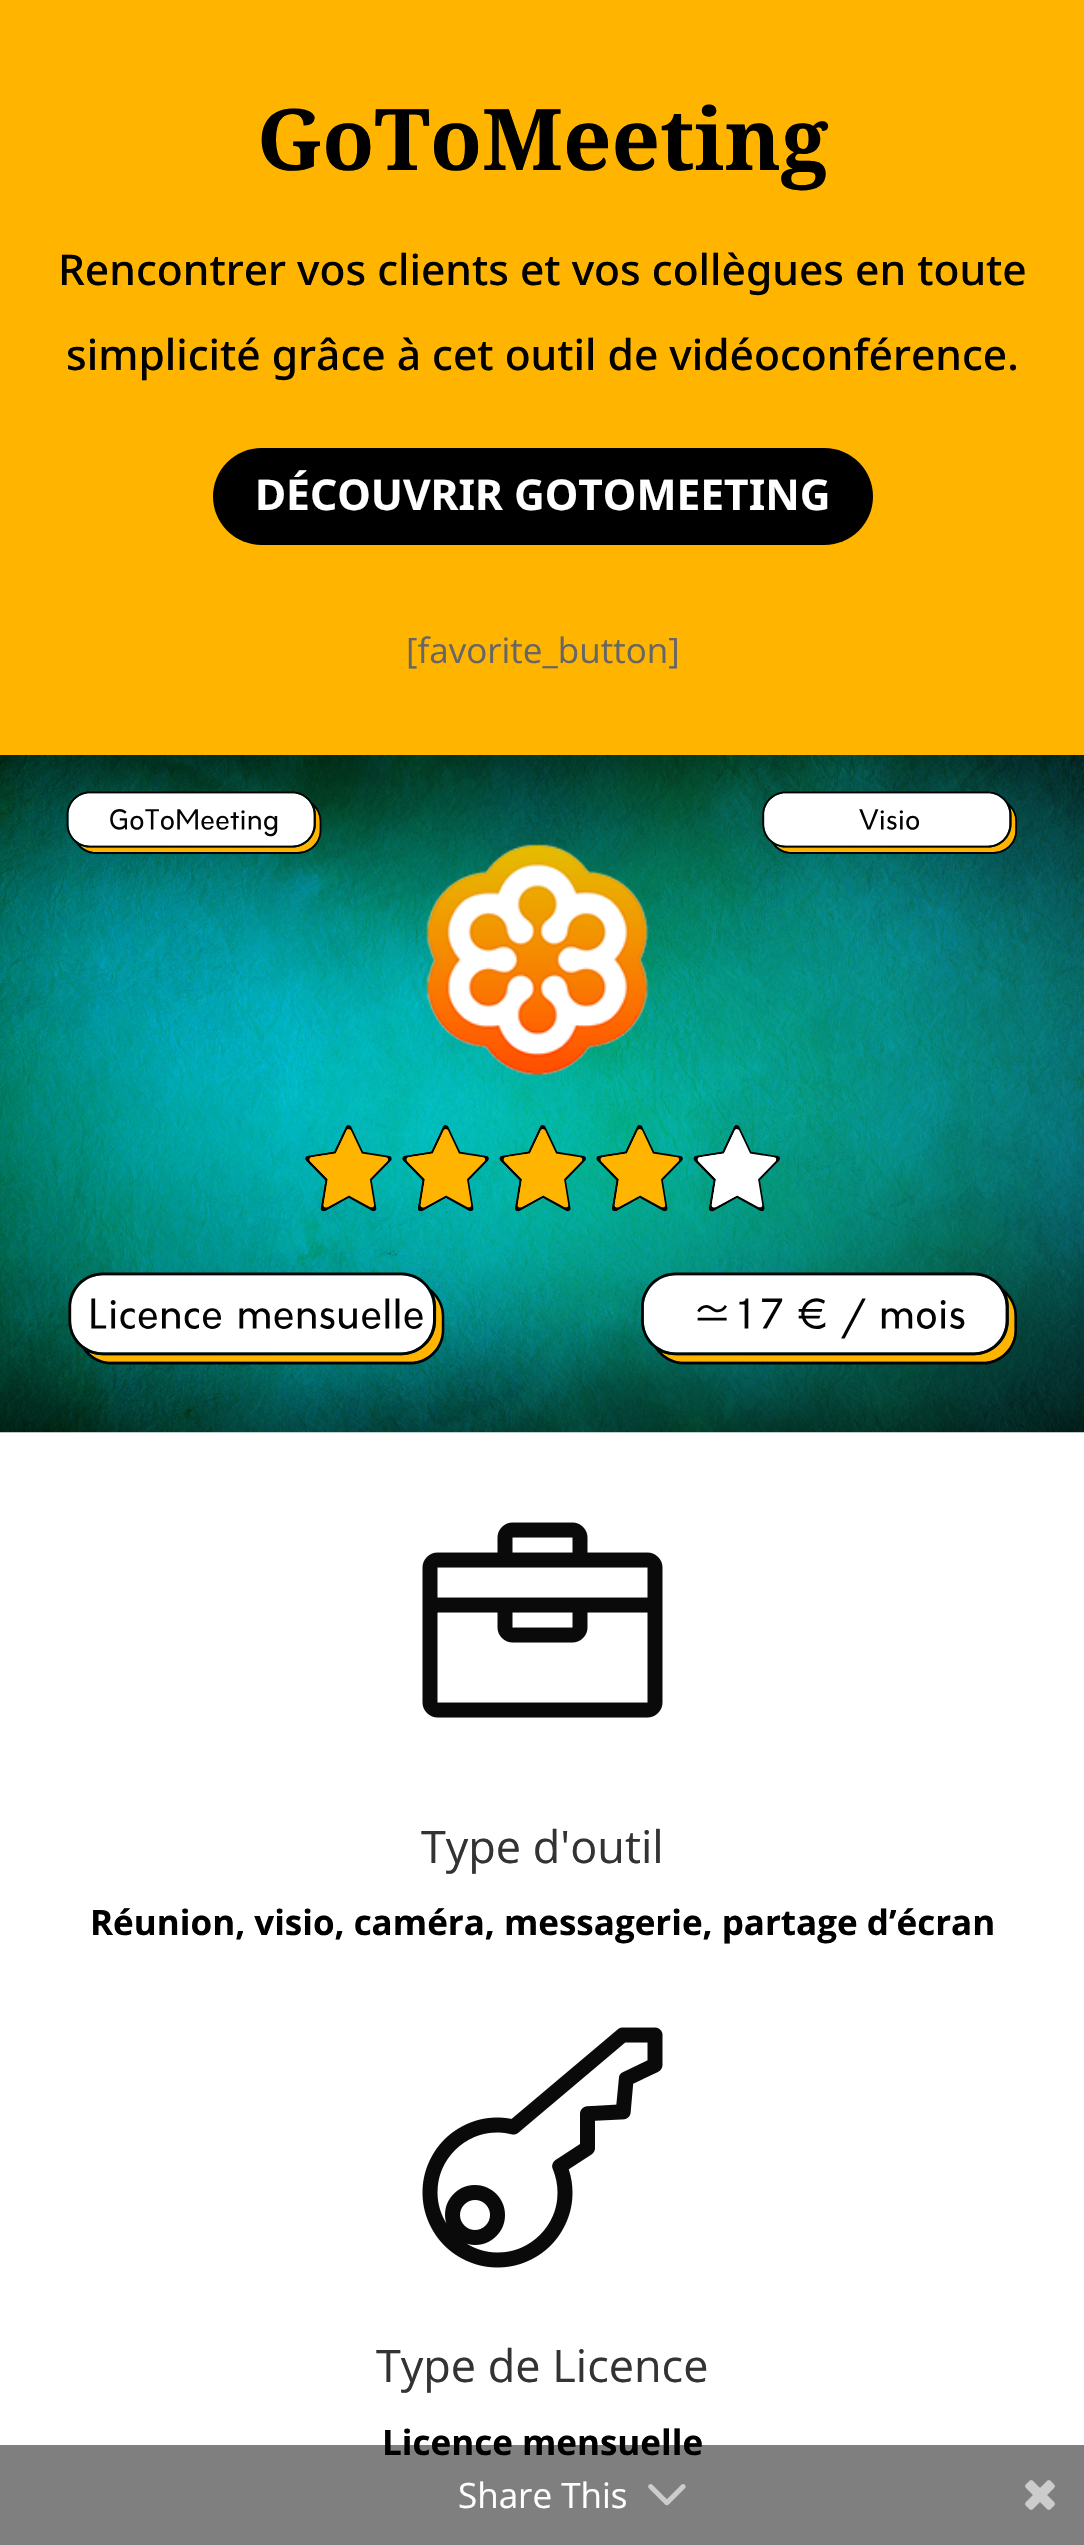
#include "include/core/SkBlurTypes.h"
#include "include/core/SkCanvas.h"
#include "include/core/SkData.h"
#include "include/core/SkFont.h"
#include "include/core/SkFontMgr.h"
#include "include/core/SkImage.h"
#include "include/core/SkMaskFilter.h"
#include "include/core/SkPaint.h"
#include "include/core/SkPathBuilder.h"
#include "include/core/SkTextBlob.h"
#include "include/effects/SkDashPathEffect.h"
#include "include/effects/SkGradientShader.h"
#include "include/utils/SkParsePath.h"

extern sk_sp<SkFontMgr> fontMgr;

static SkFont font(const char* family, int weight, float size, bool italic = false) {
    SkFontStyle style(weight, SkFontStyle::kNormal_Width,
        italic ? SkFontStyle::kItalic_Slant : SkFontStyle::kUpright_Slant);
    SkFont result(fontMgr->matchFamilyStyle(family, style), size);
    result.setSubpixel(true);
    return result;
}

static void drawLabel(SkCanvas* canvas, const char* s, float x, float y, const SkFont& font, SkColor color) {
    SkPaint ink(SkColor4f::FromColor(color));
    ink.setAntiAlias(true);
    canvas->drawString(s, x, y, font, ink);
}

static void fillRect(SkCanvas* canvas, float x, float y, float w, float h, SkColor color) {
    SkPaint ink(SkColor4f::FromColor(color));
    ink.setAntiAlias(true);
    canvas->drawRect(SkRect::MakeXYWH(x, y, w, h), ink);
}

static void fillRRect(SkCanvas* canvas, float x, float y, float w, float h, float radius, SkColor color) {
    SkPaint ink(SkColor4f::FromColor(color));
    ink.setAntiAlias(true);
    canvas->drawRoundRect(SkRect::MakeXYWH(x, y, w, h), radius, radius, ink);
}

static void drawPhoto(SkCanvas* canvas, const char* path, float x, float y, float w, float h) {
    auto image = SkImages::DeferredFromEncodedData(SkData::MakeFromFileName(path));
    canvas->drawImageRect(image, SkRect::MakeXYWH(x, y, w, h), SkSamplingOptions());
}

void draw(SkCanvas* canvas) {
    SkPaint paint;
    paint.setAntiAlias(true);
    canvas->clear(0xFFFFB400);
    SkFont font1 = font("Noto Serif", 700, 85);
    drawLabel(canvas, "GoToMeeting", 257, 170, font1, 0xFF000000);
    SkFont font2 = font("Noto Sans", 500, 42.5f);
    drawLabel(canvas, "Rencontrer vos clients et vos collègues en toute", 58, 285, font2, 0xFF000000);
    drawLabel(canvas, "simplicité grâce à cet outil de vidéoconférence.", 66, 370, font2, 0xFF000000);
    fillRRect(canvas, 213, 448, 660, 97, 48.5f, 0xFF000000);
    SkFont font3 = font("Noto Sans", 700, 42.5f);
    drawLabel(canvas, "DÉCOUVRIR GOTOMEETING", 255, 510, font3, 0xFFFFFFFF);
    SkFont font4 = font("Open Sans", 400, 35);
    drawLabel(canvas, "[favorite_button]", 406, 663, font4, 0xFF666666);
    fillRect(canvas, 0, 1432, 1084, 1113, 0xFFFFFFFF);
    drawPhoto(canvas, "assets/img1.png", 0, 755, 1084, 678);
    drawPhoto(canvas, "assets/img2.png", 422, 1522, 241, 196);
    SkFont font5 = font("Open Sans", 400, 45);
    drawLabel(canvas, "Type d'outil", 421, 1863, font5, 0xFF333333);
    SkFont font6 = font("Open Sans", 700, 35);
    drawLabel(canvas, "Réunion, visio, caméra, messagerie, partage d’écran", 90, 1935, font6, 0xFF000000);
    drawPhoto(canvas, "assets/img3.png", 422, 2027, 241, 241);
    drawLabel(canvas, "Type de Licence", 376, 2382, font5, 0xFF333333);
    drawLabel(canvas, "Licence mensuelle", 382, 2455, font6, 0xFF000000);
    fillRect(canvas, 0, 2445, 1084, 100, 0x80000000);
    drawLabel(canvas, "Share This", 458, 2508, font4, 0xFFFFFFFF);
    drawPhoto(canvas, "assets/img4.png", 648, 2484, 38, 22);
    drawPhoto(canvas, "assets/img5.png", 1025, 2480, 30, 30);
}
